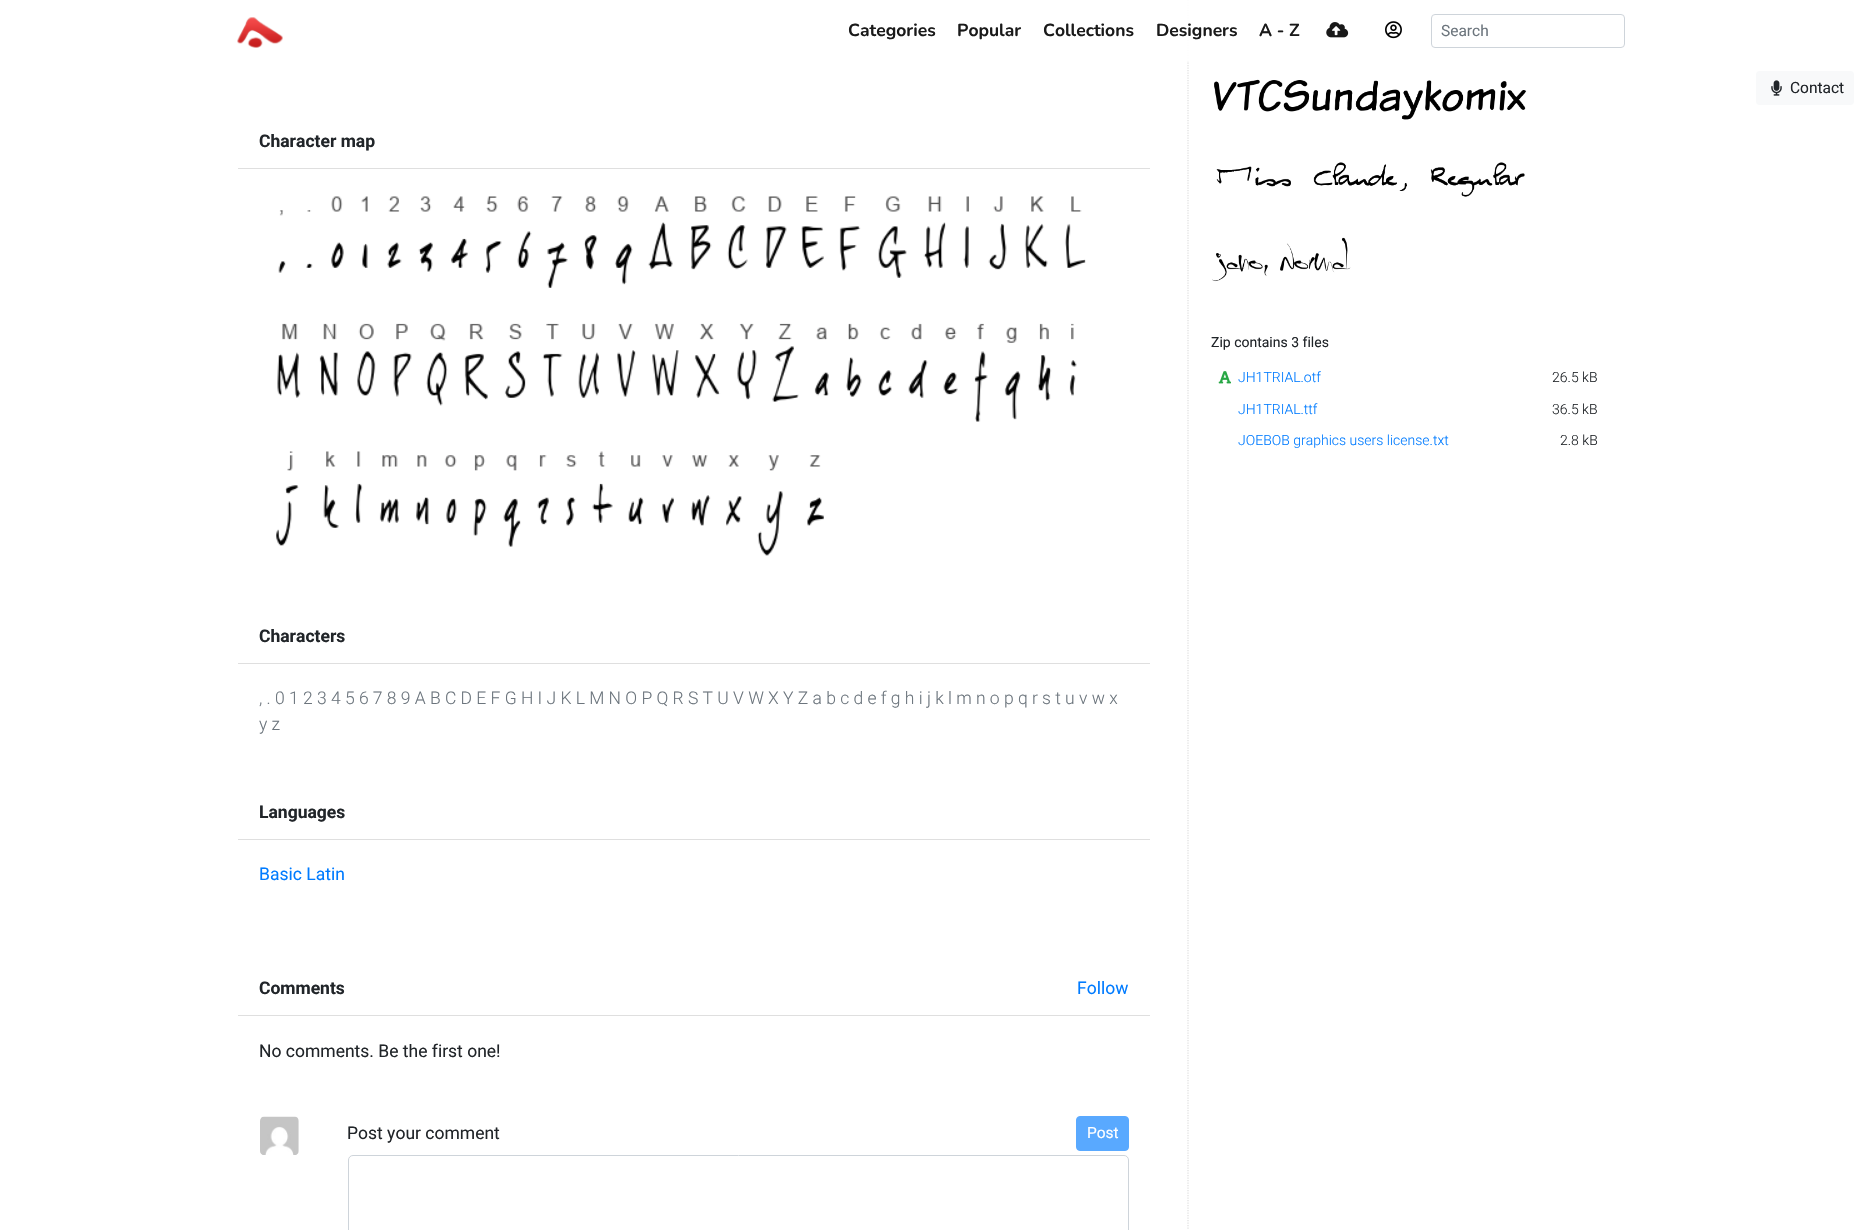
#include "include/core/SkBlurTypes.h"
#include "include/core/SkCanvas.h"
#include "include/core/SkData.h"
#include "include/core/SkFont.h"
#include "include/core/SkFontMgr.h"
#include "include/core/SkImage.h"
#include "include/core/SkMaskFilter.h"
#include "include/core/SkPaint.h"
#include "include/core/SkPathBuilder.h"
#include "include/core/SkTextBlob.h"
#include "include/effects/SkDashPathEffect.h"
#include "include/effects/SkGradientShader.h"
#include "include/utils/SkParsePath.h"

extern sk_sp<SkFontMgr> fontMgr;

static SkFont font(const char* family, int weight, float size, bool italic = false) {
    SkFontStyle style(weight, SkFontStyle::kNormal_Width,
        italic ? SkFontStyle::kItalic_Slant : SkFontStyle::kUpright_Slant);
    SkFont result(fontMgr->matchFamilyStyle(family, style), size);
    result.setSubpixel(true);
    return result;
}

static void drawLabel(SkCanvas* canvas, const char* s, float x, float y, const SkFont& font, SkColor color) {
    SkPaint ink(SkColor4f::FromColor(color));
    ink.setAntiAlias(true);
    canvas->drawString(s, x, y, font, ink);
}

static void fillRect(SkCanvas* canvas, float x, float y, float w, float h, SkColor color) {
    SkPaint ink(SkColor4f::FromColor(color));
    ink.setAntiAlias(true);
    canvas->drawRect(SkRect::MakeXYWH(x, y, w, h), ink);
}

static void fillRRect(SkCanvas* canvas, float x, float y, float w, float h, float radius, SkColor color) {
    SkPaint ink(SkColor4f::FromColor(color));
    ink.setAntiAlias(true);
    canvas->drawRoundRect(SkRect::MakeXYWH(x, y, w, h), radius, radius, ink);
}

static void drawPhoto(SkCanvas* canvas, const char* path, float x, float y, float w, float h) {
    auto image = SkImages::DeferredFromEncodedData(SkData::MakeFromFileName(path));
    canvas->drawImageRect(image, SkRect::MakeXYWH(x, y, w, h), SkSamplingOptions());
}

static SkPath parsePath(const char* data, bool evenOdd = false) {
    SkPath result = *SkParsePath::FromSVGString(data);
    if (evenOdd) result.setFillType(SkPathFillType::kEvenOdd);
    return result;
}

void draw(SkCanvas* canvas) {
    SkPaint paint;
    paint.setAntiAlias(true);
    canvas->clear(0xFFFFFFFF);
    paint.setStroke(true);
    paint.setStrokeWidth(1.2f);
    paint.setColor(0xFFDFDFDF);
    paint.setPathEffect(SkDashPathEffect::Make({{1.25f, 1.25f}}, 0));
    canvas->drawPath(parsePath("M1188-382.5V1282.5"), paint);
    paint.setPathEffect(nullptr);
    fillRect(canvas, 1187, 0, 2, 61, 0xE6FFFFFF);
    drawPhoto(canvas, "assets/img1.png", 237, 17, 46, 31);
    SkFont font1 = font("Nunito", 200, 17.5f);
    drawLabel(canvas, "Categories", 848, 36, font1, 0xFF1A1A1A);
    drawLabel(canvas, "Popular", 957, 36, font1, 0xFF1A1A1A);
    drawLabel(canvas, "Collections", 1043, 36, font1, 0xFF1A1A1A);
    drawLabel(canvas, "Designers", 1156, 36, font1, 0xFF1A1A1A);
    drawLabel(canvas, "A - Z", 1259, 36, font1, 0xFF1A1A1A);
    drawPhoto(canvas, "assets/img2.png", 1326, 22, 23, 16);
    drawPhoto(canvas, "assets/img3.png", 1385, 21, 17, 18);
    paint.setStrokeWidth(1);
    paint.setColor(0xFFCED4DA);
    canvas->drawRoundRect(SkRect::MakeXYWH(1431.5f, 14.5f, 193, 33), 3.5f, 3.5f, paint);
    SkFont font2 = font("Roboto", 400, 15.5f);
    drawLabel(canvas, "Search", 1441, 36, font2, 0xFF6C757D);
    fillRRect(canvas, 1756, 71, 98, 34, 4, 0xFFF8F9FA);
    drawPhoto(canvas, "assets/img4.png", 1771, 80, 11, 16);
    drawLabel(canvas, "Contact", 1790, 93, font2, 0xFF212529);
    fillRect(canvas, 238, 168, 912, 1, 0xFFDFDFDF);
    SkFont font3 = font("Roboto", 700, 17.5f);
    drawLabel(canvas, "Character map", 259, 147, font3, 0xFF212529);
    drawPhoto(canvas, "assets/img5.png", 276, 196, 810, 360);
    fillRect(canvas, 238, 663, 912, 1, 0xFFDFDFDF);
    drawLabel(canvas, "Characters", 259, 642, font3, 0xFF212529);
    SkFont font4 = font("Roboto", 300, 17.5f);
    drawLabel(canvas, ", . 0 1 2 3 4 5 6 7 8 9 A B C D E F G H I J K L M N O P Q R S T U V W X Y Z a b c d e f g h i j k l m n o p q r s t u v w x", 259, 704, font4, 0xFF6C757D);
    drawLabel(canvas, "y z", 259, 730, font4, 0xFF6C757D);
    fillRect(canvas, 238, 839, 912, 1, 0xFFDFDFDF);
    drawLabel(canvas, "Languages", 259, 818, font3, 0xFF212529);
    SkFont font5 = font("Roboto", 400, 17.5f);
    drawLabel(canvas, "Basic Latin", 259, 880, font5, 0xFF007BFF);
    fillRect(canvas, 238, 1015, 912, 1, 0xFFDFDFDF);
    drawLabel(canvas, "Comments", 259, 994, font3, 0xFF212529);
    drawLabel(canvas, "Follow", 1077, 994, font5, 0xFF007BFF);
    drawLabel(canvas, "No comments. Be the first one!", 259, 1057, font5, 0xFF212529);
    drawPhoto(canvas, "assets/img6.png", 260, 1116, 39, 39);
    drawLabel(canvas, "Post your comment", 347, 1139, font5, 0xFF212529);
    paint.setStroke(false);
    paint.setColor(0xFF59A9FF);
    canvas->drawRoundRect(SkRect::MakeXYWH(1076.5f, 1116.5f, 52, 34), 3.5f, 3.5f, paint);
    paint.setStroke(true);
    canvas->drawRoundRect(SkRect::MakeXYWH(1076.5f, 1116.5f, 52, 34), 3.5f, 3.5f, paint);
    drawLabel(canvas, "Post", 1087, 1138, font2, 0xFFFFFFFF);
    paint.setColor(0xFFCED4DA);
    canvas->drawRoundRect(SkRect::MakeXYWH(348.5f, 1155.5f, 780, 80), 4.5f, 4.5f, paint);
    drawPhoto(canvas, "assets/img7.png", 1214, 79, 313, 41);
    drawPhoto(canvas, "assets/img8.png", 1216, 162, 309, 35);
    drawPhoto(canvas, "assets/img9.png", 1212, 237, 139, 45);
    SkFont font6 = font("Roboto", 400, 14);
    drawLabel(canvas, "Zip contains 3 files", 1211, 347, font6, 0xFF212529);
    drawPhoto(canvas, "assets/img10.png", 1218, 371, 13, 13);
    SkFont font7 = font("Roboto", 300, 14);
    drawLabel(canvas, "JH1TRIAL.otf", 1238, 382, font7, 0xFF007BFF);
    drawLabel(canvas, "26.5 kB", 1552, 382, font7, 0xFF212529);
    drawLabel(canvas, "JH1TRIAL.ttf", 1238, 414, font7, 0xFF007BFF);
    drawLabel(canvas, "36.5 kB", 1552, 414, font7, 0xFF212529);
    drawLabel(canvas, "JOEBOB graphics users license.txt", 1238, 445, font7, 0xFF007BFF);
    drawLabel(canvas, "2.8 kB", 1560, 445, font7, 0xFF212529);
}
